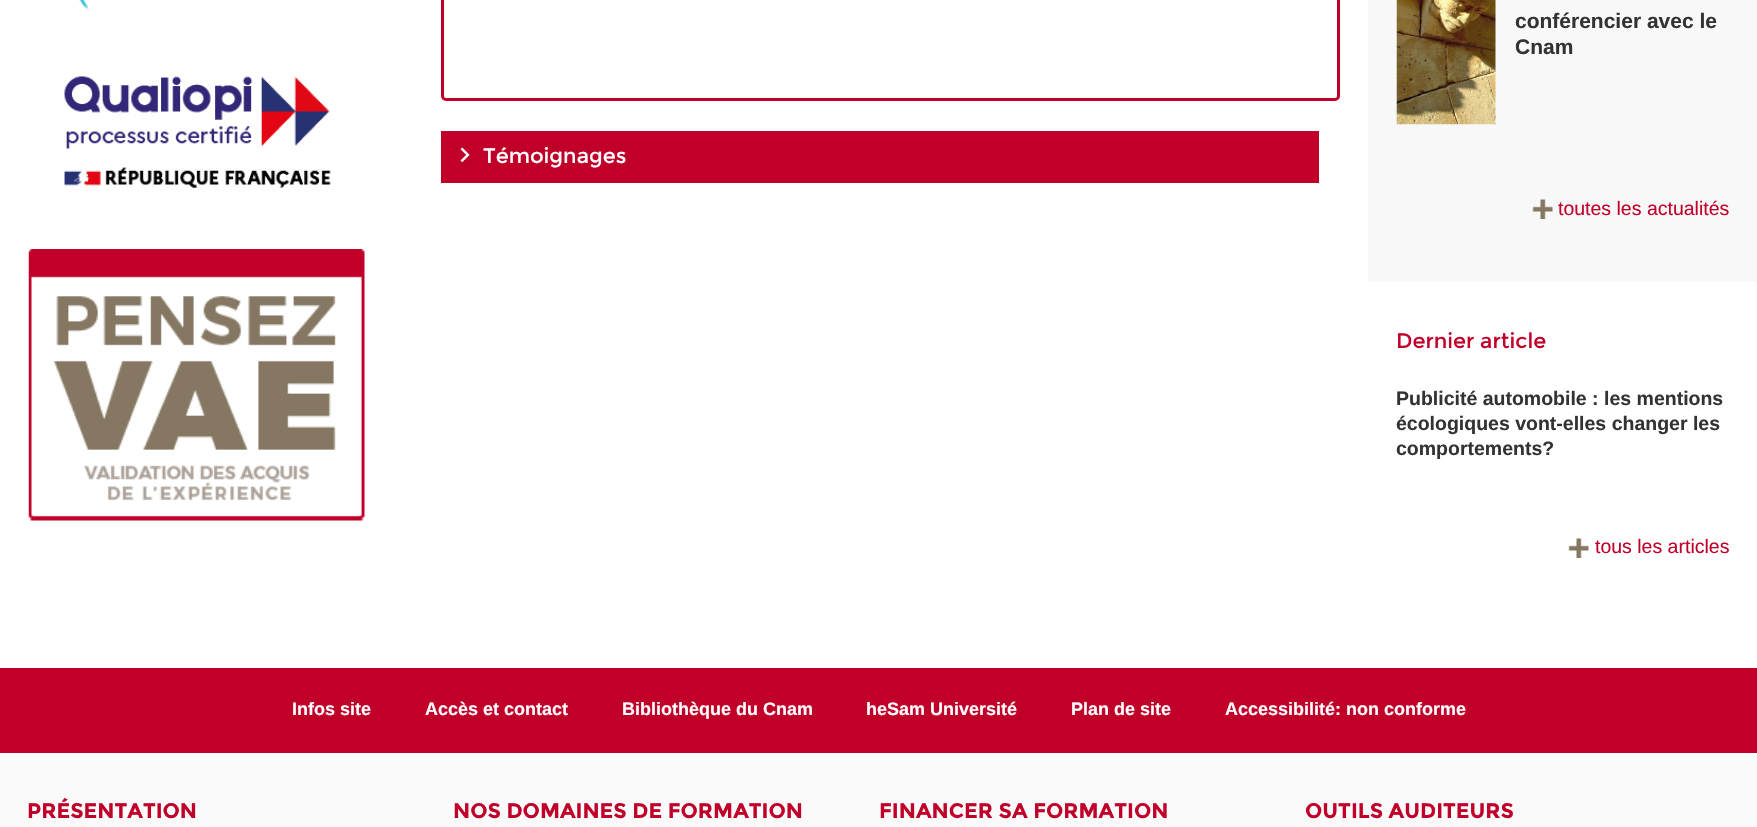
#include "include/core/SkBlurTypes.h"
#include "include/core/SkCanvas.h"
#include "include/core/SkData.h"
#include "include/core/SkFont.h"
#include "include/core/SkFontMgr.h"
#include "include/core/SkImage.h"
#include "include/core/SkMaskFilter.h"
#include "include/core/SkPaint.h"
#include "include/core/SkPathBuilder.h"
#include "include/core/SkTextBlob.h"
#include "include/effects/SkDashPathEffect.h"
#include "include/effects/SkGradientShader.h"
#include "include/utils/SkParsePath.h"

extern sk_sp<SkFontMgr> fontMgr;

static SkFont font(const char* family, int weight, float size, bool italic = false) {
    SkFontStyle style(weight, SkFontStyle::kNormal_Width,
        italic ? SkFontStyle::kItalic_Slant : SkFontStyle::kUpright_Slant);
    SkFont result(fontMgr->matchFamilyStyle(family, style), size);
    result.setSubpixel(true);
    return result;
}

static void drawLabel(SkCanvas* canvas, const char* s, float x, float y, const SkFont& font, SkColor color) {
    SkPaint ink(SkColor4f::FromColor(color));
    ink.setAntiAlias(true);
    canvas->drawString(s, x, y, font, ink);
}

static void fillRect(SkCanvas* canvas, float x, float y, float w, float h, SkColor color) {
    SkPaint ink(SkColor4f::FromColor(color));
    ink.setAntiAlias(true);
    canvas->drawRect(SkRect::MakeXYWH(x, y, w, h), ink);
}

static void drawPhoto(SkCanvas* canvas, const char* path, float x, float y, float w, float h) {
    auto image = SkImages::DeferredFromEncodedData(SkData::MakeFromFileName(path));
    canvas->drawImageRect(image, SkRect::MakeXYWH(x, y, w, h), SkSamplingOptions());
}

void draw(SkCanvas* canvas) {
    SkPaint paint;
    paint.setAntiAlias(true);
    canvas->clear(0xFFFAFAFA);
    fillRect(canvas, 0, 0, 1757, 668, 0xFFFFFFFF);
    drawPhoto(canvas, "assets/img1.png", 78, 0, 12, 10);
    drawPhoto(canvas, "assets/img2.png", 64, 76, 267, 112);
    drawPhoto(canvas, "assets/img3.png", 28, 249, 337, 272);
    paint.setStroke(true);
    paint.setStrokeWidth(3);
    paint.setColor(0xFFC1002A);
    canvas->drawRoundRect(SkRect::MakeXYWH(442.5f, -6.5f, 896, 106), 3.5f, 3.5f, paint);
    fillRect(canvas, 441, 131, 878, 52, 0xFFC1002A);
    drawPhoto(canvas, "assets/img4.png", 460, 147, 10, 16);
    SkFont font1 = font("Montserrat", 400, 21);
    drawLabel(canvas, "Témoignages", 483, 163, font1, 0xFFFFFFFF);
    fillRect(canvas, 1368, 0, 389, 282, 0xFFF8F8F8);
    drawPhoto(canvas, "assets/img5.png", 1396, 0, 100, 125);
    SkFont font2 = font("Liberation Sans", 700, 21);
    drawLabel(canvas, "conférencier avec le", 1515, 28, font2, 0xFF333333);
    drawLabel(canvas, "Cnam", 1515, 54, font2, 0xFF333333);
    drawPhoto(canvas, "assets/img6.png", 1532, 199, 21, 20);
    SkFont font3 = font("Liberation Sans", 400, 19.5f);
    drawLabel(canvas, "toutes les actualités", 1558, 215, font3, 0xFFC1002A);
    drawLabel(canvas, "Dernier article", 1396, 348, font1, 0xFFC1002A);
    SkFont font4 = font("Liberation Sans", 700, 19.5f);
    drawLabel(canvas, "Publicité automobile : les mentions", 1396, 405, font4, 0xFF333333);
    drawLabel(canvas, "écologiques vont-elles changer les", 1396, 430, font4, 0xFF333333);
    drawLabel(canvas, "comportements?", 1396, 455, font4, 0xFF333333);
    drawPhoto(canvas, "assets/img7.png", 1568, 538, 21, 20);
    drawLabel(canvas, "tous les articles", 1595, 553, font3, 0xFFC1002A);
    fillRect(canvas, 0, 668, 1757, 85, 0xFFC1002A);
    SkFont font5 = font("Liberation Sans", 700, 18);
    drawLabel(canvas, "Infos site", 292, 715, font5, 0xFFFFFFFF);
    drawLabel(canvas, "Accès et contact", 425, 715, font5, 0xFFFFFFFF);
    drawLabel(canvas, "Bibliothèque du Cnam", 622, 715, font5, 0xFFFFFFFF);
    drawLabel(canvas, "heSam Université", 866, 715, font5, 0xFFFFFFFF);
    drawLabel(canvas, "Plan de site", 1071, 715, font5, 0xFFFFFFFF);
    drawLabel(canvas, "Accessibilité: non conforme", 1225, 715, font5, 0xFFFFFFFF);
    SkFont font6 = font("Montserrat", 700, 21);
    drawLabel(canvas, "PRÉSENTATION", 27, 818, font6, 0xFFC1002A);
    drawLabel(canvas, "NOS DOMAINES DE FORMATION", 453, 818, font6, 0xFFC1002A);
    drawLabel(canvas, "FINANCER SA FORMATION", 879, 818, font6, 0xFFC1002A);
    drawLabel(canvas, "OUTILS AUDITEURS", 1305, 818, font6, 0xFFC1002A);
}
